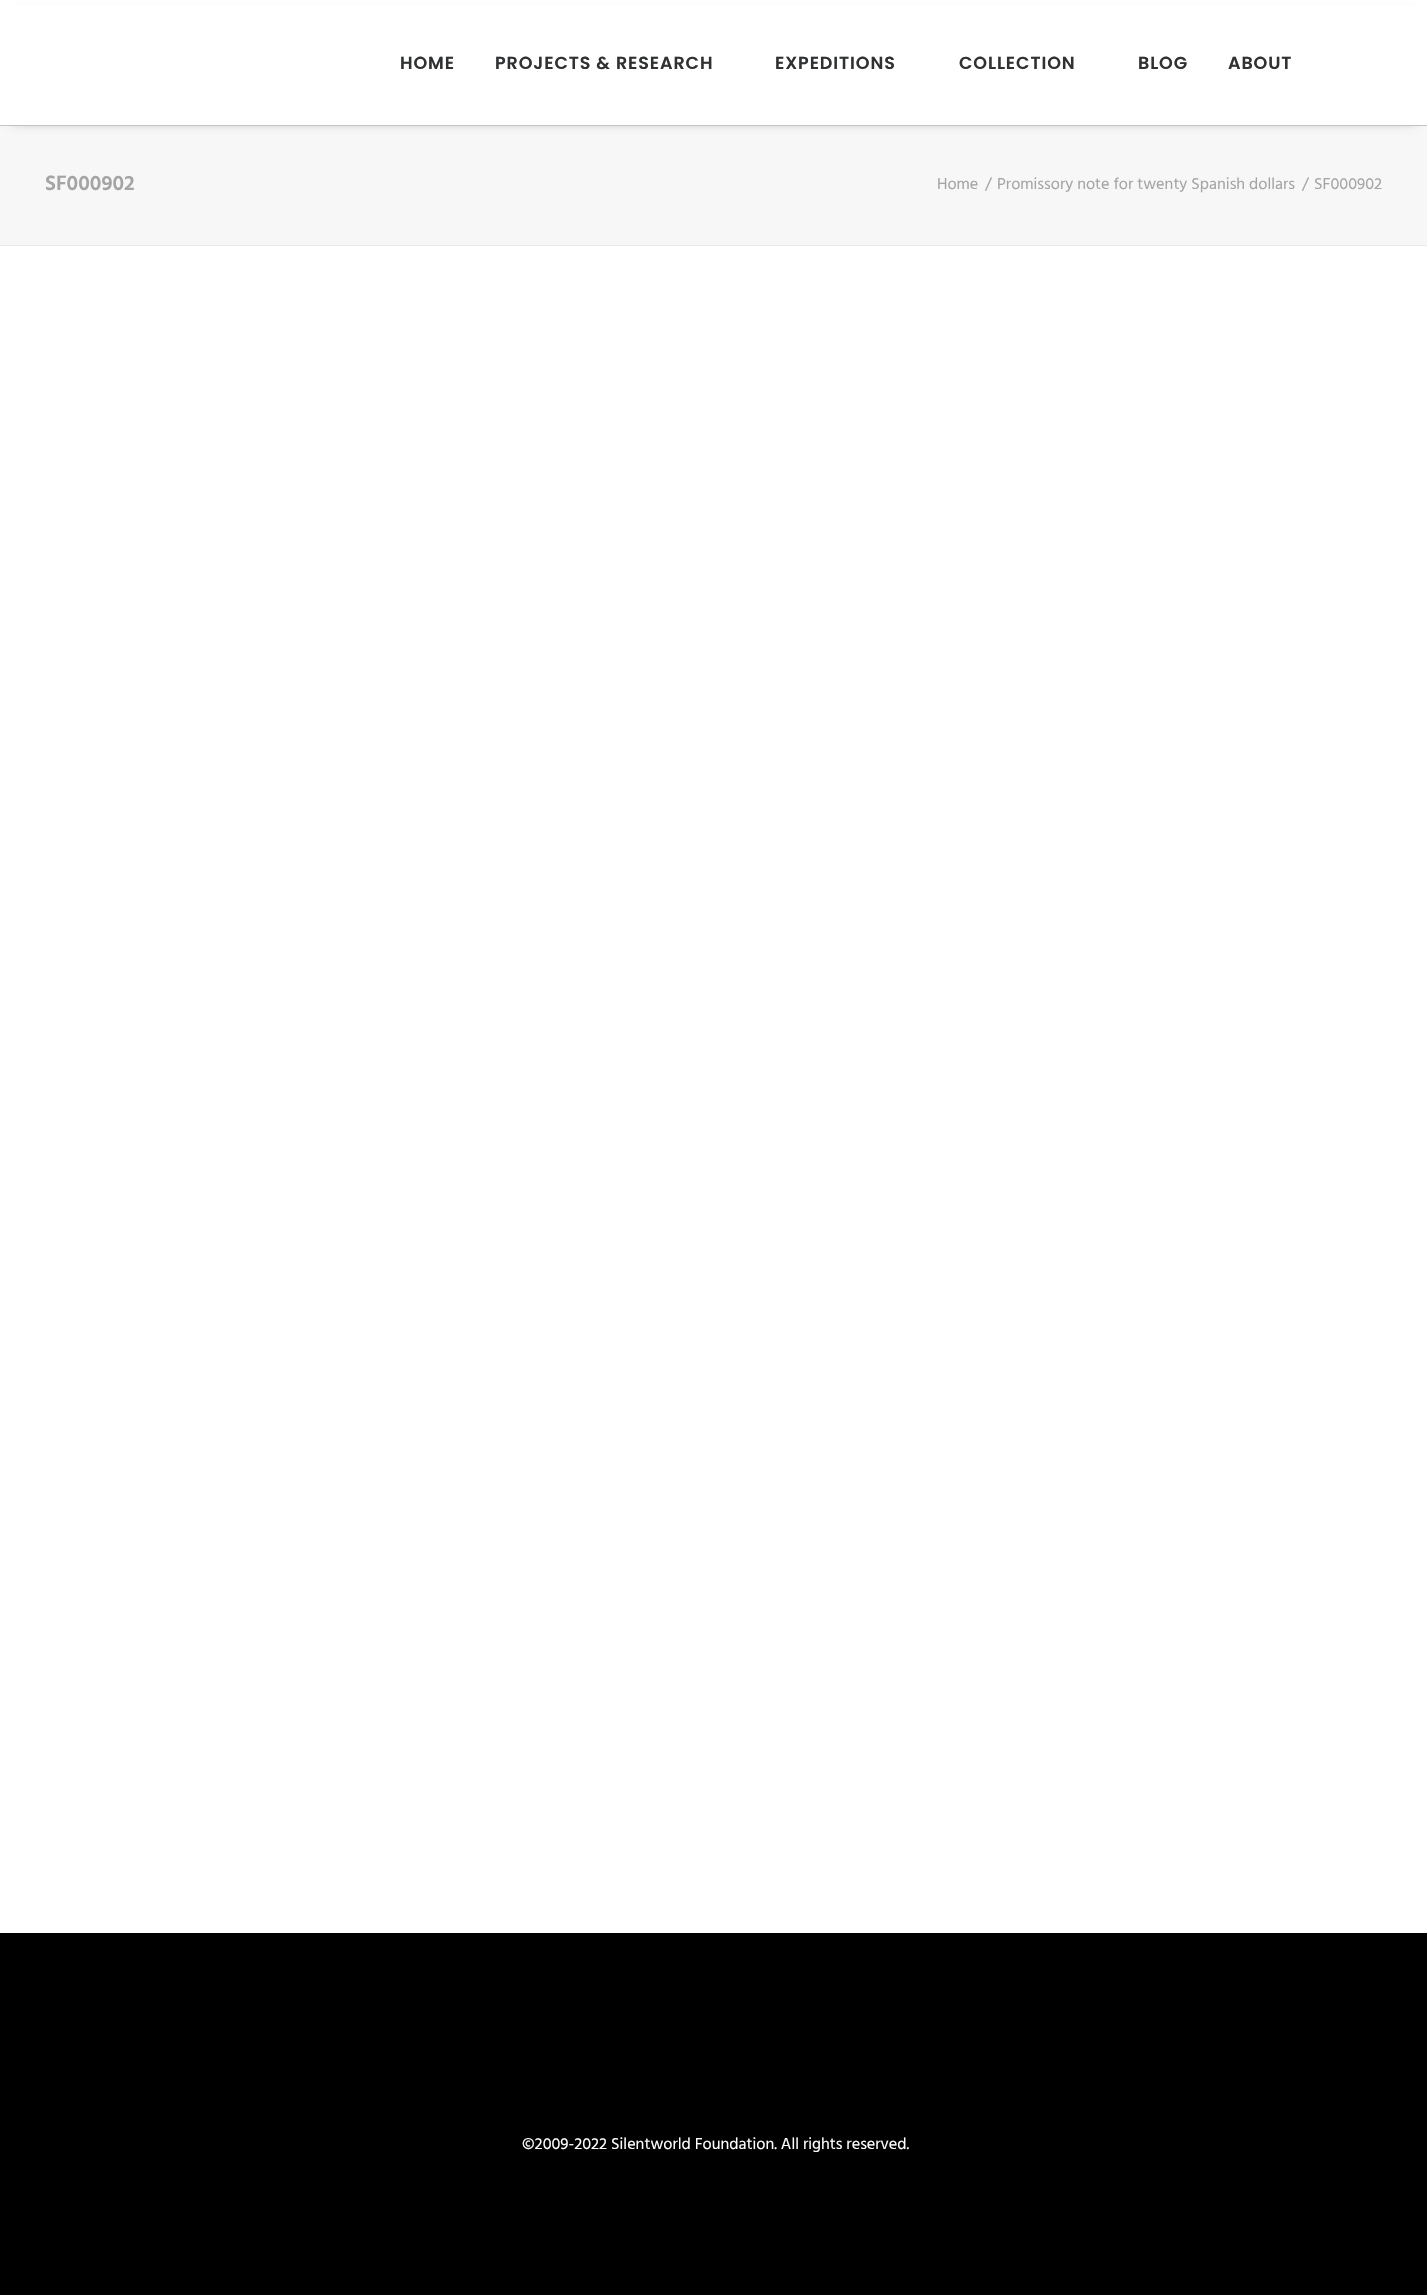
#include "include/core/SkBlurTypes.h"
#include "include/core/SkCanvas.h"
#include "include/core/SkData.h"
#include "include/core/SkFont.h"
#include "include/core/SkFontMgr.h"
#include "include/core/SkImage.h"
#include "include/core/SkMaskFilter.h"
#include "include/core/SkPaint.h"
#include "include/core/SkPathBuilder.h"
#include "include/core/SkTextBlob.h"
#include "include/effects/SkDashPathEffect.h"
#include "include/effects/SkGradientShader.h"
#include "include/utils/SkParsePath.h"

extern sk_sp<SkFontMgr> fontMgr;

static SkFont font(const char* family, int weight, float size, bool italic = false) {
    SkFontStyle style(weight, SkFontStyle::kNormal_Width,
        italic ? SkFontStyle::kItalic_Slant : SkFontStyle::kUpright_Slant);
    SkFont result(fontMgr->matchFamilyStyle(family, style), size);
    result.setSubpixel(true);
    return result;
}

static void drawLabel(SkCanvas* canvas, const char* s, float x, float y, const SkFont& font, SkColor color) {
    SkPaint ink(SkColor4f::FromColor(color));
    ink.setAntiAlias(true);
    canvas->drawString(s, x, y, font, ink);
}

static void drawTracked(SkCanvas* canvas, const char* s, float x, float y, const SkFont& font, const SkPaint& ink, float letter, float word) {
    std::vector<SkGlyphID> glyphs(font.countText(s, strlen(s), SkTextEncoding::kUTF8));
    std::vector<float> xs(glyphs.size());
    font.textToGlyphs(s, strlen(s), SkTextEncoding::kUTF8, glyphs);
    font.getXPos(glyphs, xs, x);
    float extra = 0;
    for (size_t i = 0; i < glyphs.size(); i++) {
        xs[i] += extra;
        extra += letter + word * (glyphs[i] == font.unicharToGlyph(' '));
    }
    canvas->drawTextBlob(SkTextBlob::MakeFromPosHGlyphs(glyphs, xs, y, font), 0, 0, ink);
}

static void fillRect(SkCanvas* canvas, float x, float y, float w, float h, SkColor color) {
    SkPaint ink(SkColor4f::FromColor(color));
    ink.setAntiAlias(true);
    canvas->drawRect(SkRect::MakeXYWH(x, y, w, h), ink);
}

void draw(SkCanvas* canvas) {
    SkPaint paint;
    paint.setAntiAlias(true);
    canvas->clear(0xFFFFFFFF);
    fillRect(canvas, 0, 126, 1427, 119, 0xFFF7F7F7);
    paint.setColor(0x99000000);
    paint.setMaskFilter(SkMaskFilter::MakeBlur(kNormal_SkBlurStyle, 6));
    canvas->drawRect(SkRect::MakeXYWH(13, 18, 1402, 101), paint);
    paint.setMaskFilter(nullptr);
    fillRect(canvas, 0, 5, 1427, 120, 0xFFFFFFFF);
    fillRect(canvas, 0, 125, 1427, 1, 0xFFC3C4C4);
    SkFont font1 = font("Poppins", 600, 17.5f);
    paint.setColor(0xFF303133);
    drawTracked(canvas, "HOME", 400, 69, font1, paint, 0.9f, 0);
    drawTracked(canvas, "PROJECTS & RESEARCH", 495, 69, font1, paint, 0.9f, 0);
    drawTracked(canvas, "EXPEDITIONS", 775, 69, font1, paint, 0.9f, 0);
    drawTracked(canvas, "COLLECTION", 959, 69, font1, paint, 0.9f, 0);
    drawTracked(canvas, "BLOG", 1138, 69, font1, paint, 0.9f, 0);
    drawTracked(canvas, "ABOUT", 1228, 69, font1, paint, 0.9f, 0);
    fillRect(canvas, 0, 245, 1427, 1, 0xFFEAEAEA);
    SkFont font2 = font("Hind", 600, 21.25f);
    drawLabel(canvas, "SF000902", 45, 190, font2, 0xFFA4A4A4);
    SkFont font3 = font("Hind", 400, 16.25f);
    drawLabel(canvas, "Home", 937, 189, font3, 0xFFA4A4A4);
    drawLabel(canvas, "/", 985, 189, font3, 0xFFA4A4A4);
    drawLabel(canvas, "Promissory note for twenty Spanish dollars", 997, 189, font3, 0xFFA4A4A4);
    drawLabel(canvas, "/", 1302, 189, font3, 0xFFA4A4A4);
    drawLabel(canvas, "SF000902", 1314, 189, font3, 0xFFA4A4A4);
    fillRect(canvas, 0, 1933, 1427, 362, 0xFF000000);
    drawLabel(canvas, "©2009-2022 Silentworld Foundation. All rights reserved.", 522, 2149, font3, 0xFFFFFFFF);
}
